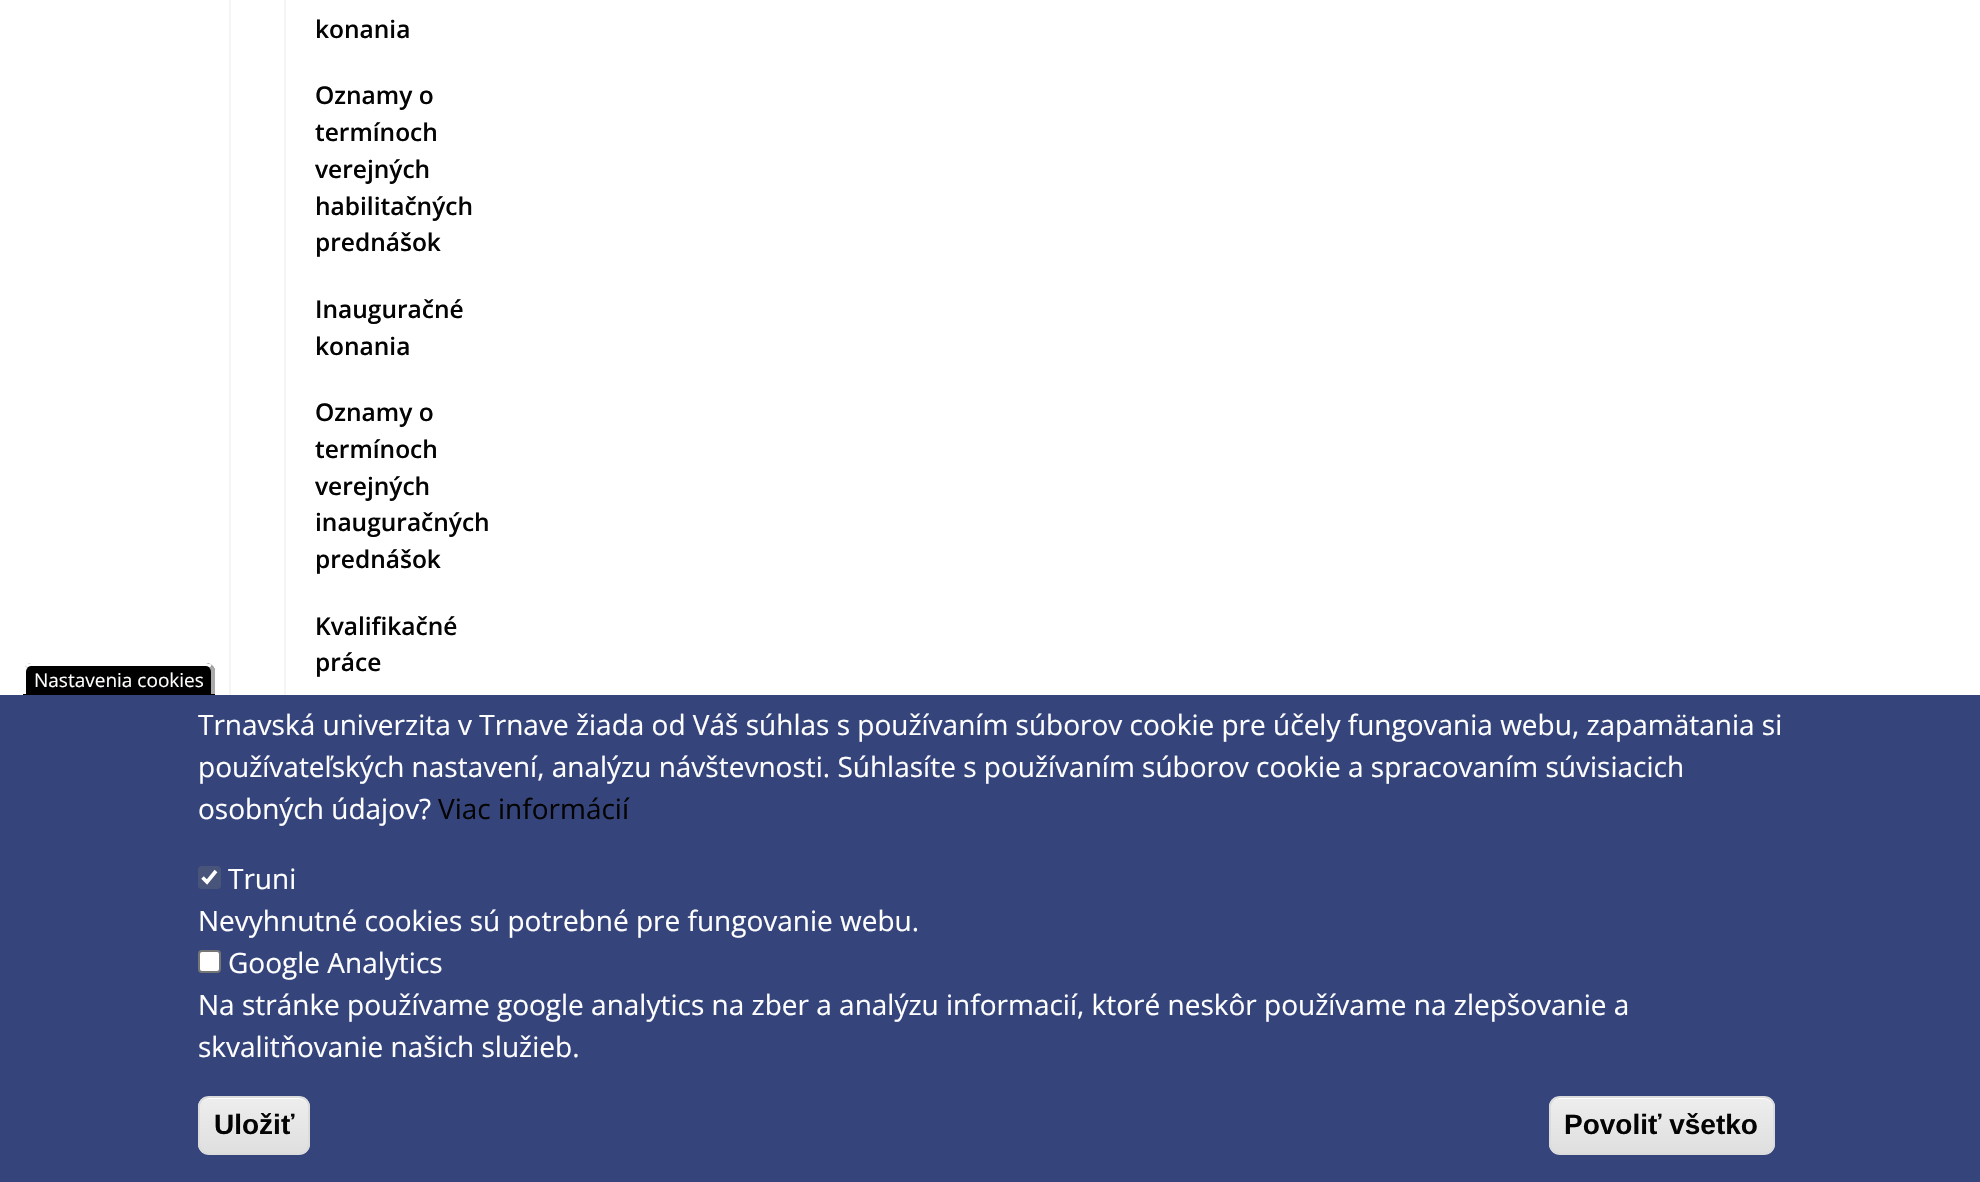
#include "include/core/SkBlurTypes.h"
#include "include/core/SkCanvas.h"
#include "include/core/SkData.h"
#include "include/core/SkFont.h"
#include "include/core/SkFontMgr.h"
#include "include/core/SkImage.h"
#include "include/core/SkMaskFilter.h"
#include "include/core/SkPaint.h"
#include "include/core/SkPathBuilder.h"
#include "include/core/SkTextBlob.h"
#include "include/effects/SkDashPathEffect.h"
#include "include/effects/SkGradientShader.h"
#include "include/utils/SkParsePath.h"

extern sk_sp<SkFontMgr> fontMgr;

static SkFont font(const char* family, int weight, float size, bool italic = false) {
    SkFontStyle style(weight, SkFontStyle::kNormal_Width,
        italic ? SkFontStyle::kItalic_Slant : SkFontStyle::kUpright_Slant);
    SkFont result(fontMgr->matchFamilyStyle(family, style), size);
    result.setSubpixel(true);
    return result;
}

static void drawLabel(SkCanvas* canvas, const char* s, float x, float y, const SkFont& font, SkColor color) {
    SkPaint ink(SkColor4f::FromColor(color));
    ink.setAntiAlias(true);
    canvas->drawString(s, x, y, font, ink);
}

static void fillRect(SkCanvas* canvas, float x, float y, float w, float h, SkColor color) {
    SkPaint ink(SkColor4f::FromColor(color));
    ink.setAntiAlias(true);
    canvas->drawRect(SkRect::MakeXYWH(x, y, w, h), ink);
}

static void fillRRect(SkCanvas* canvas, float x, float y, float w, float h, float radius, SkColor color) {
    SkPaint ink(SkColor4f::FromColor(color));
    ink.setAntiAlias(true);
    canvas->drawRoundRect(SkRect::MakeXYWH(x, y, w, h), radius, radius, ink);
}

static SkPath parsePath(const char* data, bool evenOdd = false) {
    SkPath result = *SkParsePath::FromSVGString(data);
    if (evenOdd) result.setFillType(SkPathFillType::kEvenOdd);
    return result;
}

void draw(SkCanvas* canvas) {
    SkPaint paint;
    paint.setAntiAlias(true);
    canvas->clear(0xFFFFFFFF);
    fillRect(canvas, 229, 0, 2, 695, 0xFFF5F5F5);
    fillRect(canvas, 284, 0, 2, 695, 0xFFF5F5F5);
    SkFont font1 = font("Open Sans", 600, 24.5f);
    drawLabel(canvas, "konania", 315, 38, font1, 0xFF040404);
    drawLabel(canvas, "Oznamy o", 315, 104, font1, 0xFF040404);
    drawLabel(canvas, "termínoch", 315, 141, font1, 0xFF040404);
    drawLabel(canvas, "verejných", 315, 178, font1, 0xFF040404);
    drawLabel(canvas, "habilitačných", 315, 215, font1, 0xFF040404);
    drawLabel(canvas, "prednášok", 315, 251, font1, 0xFF040404);
    drawLabel(canvas, "Inauguračné", 315, 318, font1, 0xFF040404);
    drawLabel(canvas, "konania", 315, 355, font1, 0xFF040404);
    drawLabel(canvas, "Oznamy o", 315, 421, font1, 0xFF040404);
    drawLabel(canvas, "termínoch", 315, 458, font1, 0xFF040404);
    drawLabel(canvas, "verejných", 315, 495, font1, 0xFF040404);
    drawLabel(canvas, "inauguračných", 315, 531, font1, 0xFF040404);
    drawLabel(canvas, "prednášok", 315, 568, font1, 0xFF040404);
    drawLabel(canvas, "Kvalifikačné", 315, 635, font1, 0xFF040404);
    drawLabel(canvas, "práce", 315, 671, font1, 0xFF040404);
    fillRect(canvas, 0, 695, 1980, 487, 0xFF35457C);
    paint.setColor(0xFF000000);
    canvas->drawPath(parsePath("M32 663H206C211 663 215 667 215 672V695H23V672C23 667 27 663 32 663Z"), paint);
    paint.setColor(0xFFFFFFFF);
    canvas->drawPath(parsePath("M31 663H206C208 663 211 664 212 665L210 668C209 667 208 666 206 666H31C29 666 28 667 27 668L25 665C26 664 29 663 31 663Z"), paint);
    paint.setColor(0xFFAAAAAA);
    canvas->drawPath(parsePath("M212 665.5C213.5 666.5 214.5 668.5 215 670V694H211V672C211 670.5 210.5 669 209.5 668Z"), paint);
    paint.setColor(0xFFFFFFFF);
    canvas->drawPath(parsePath("M25 665.5L27.5 668C26.5 669 26 670.5 26 672V694H22.5V669.5C23 668 23.5 666.5 25 665.5Z"), paint);
    SkFont font2 = font("Open Sans", 400, 19);
    drawLabel(canvas, "Nastavenia cookies", 34, 687, font2, 0xFFFFFFFF);
    SkFont font3 = font("Open Sans", 400, 28);
    drawLabel(canvas, "Trnavská univerzita v Trnave žiada od Váš súhlas s používaním súborov cookie pre účely fungovania webu, zapamätania si", 198, 735, font3, 0xFFFFFFFF);
    drawLabel(canvas, "používateľských nastavení, analýzu návštevnosti. Súhlasíte s používaním súborov cookie a spracovaním súvisiacich", 198, 777, font3, 0xFFFFFFFF);
    drawLabel(canvas, "osobných údajov?", 198, 819, font3, 0xFFFFFFFF);
    drawLabel(canvas, "Viac informácií", 438, 819, font3, 0xFF040404);
    fillRRect(canvas, 198, 866, 23, 23, 4, 0xFF49547A);
    paint.setStroke(true);
    paint.setStrokeWidth(3.6f);
    canvas->drawPath(parsePath("M202.5 877.5L207 882L216 871"), paint);
    drawLabel(canvas, "Truni", 228, 889, font3, 0xFFFFFFFF);
    drawLabel(canvas, "Nevyhnutné cookies sú potrebné pre fungovanie webu.", 198, 931, font3, 0xFFFFFFFF);
    paint.setStroke(false);
    canvas->drawRoundRect(SkRect::MakeXYWH(199, 951, 21, 21), 3, 3, paint);
    paint.setStroke(true);
    paint.setStrokeWidth(2);
    paint.setColor(0xFF767676);
    canvas->drawRoundRect(SkRect::MakeXYWH(199, 951, 21, 21), 3, 3, paint);
    drawLabel(canvas, "Google Analytics", 228, 973, font3, 0xFFFFFFFF);
    drawLabel(canvas, "Na stránke používame google analytics na zber a analýzu informacií, ktoré neskôr používame na zlepšovanie a", 198, 1015, font3, 0xFFFFFFFF);
    drawLabel(canvas, "skvalitňovanie našich služieb.", 198, 1057, font3, 0xFFFFFFFF);
    canvas->save();
    canvas->clipPath(parsePath("M209 1096H299C305 1096 310 1101 310 1107V1144C310 1150 305 1155 299 1155H209C203 1155 198 1150 198 1144V1107C198 1101 203 1096 209 1096Z"), true);
    paint.setStroke(false);
    {
        const SkColor colors[] = {0xFFEDEDED, 0xFFDFDFDF};
        const float stops[] = {0.05f, 1};
        const SkPoint ends[] = {{254, 1097}, {254, 1153}};
        paint.setShader(SkGradientShader::MakeLinear(ends, colors, stops, 2, SkTileMode::kClamp));
        paint.setAlpha(255);
    }
    canvas->drawRect(SkRect::MakeXYWH(198, 1097, 112, 56), paint);
    canvas->restore();
    paint.setShader(nullptr);
    paint.setColor(0xFFFFFFFF);
    canvas->drawPath(parsePath("M208 1099H299C304 1099 308 1103 308 1108C308 1094 295 1097 284 1097H224C213 1097 200 1094 200 1108C200 1103 203 1099 208 1099Z"), paint);
    paint.setStroke(true);
    paint.setColor(0xFFDCDCDC);
    canvas->drawRoundRect(SkRect::MakeXYWH(199, 1097, 110, 57), 10, 10, paint);
    SkFont font4 = font("Liberation Sans", 700, 28);
    drawLabel(canvas, "Uložiť", 214, 1134, font4, 0xFF040404);
    canvas->save();
    canvas->clipPath(parsePath("M1560 1096H1764C1770 1096 1775 1101 1775 1107V1144C1775 1150 1770 1155 1764 1155H1560C1554 1155 1549 1150 1549 1144V1107C1549 1101 1554 1096 1560 1096Z"), true);
    paint.setStroke(false);
    {
        const SkColor colors[] = {0xFFEDEDED, 0xFFDFDFDF};
        const float stops[] = {0.05f, 1};
        const SkPoint ends[] = {{1662, 1097}, {1662, 1153}};
        paint.setShader(SkGradientShader::MakeLinear(ends, colors, stops, 2, SkTileMode::kClamp));
        paint.setAlpha(255);
    }
    canvas->drawRect(SkRect::MakeXYWH(1549, 1097, 226, 56), paint);
    canvas->restore();
    paint.setShader(nullptr);
    paint.setColor(0xFFFFFFFF);
    canvas->drawPath(parsePath("M1559 1099H1764C1769 1099 1773 1103 1773 1108V1106C1773 1101 1769 1097 1764 1097H1560C1556 1097 1553 1099 1552 1103C1553 1101 1556 1099 1559 1099Z"), paint);
    paint.setStroke(true);
    paint.setColor(0xFFDCDCDC);
    canvas->drawRoundRect(SkRect::MakeXYWH(1550, 1097, 224, 57), 10, 10, paint);
    drawLabel(canvas, "Povoliť všetko", 1564, 1134, font4, 0xFF040404);
}
